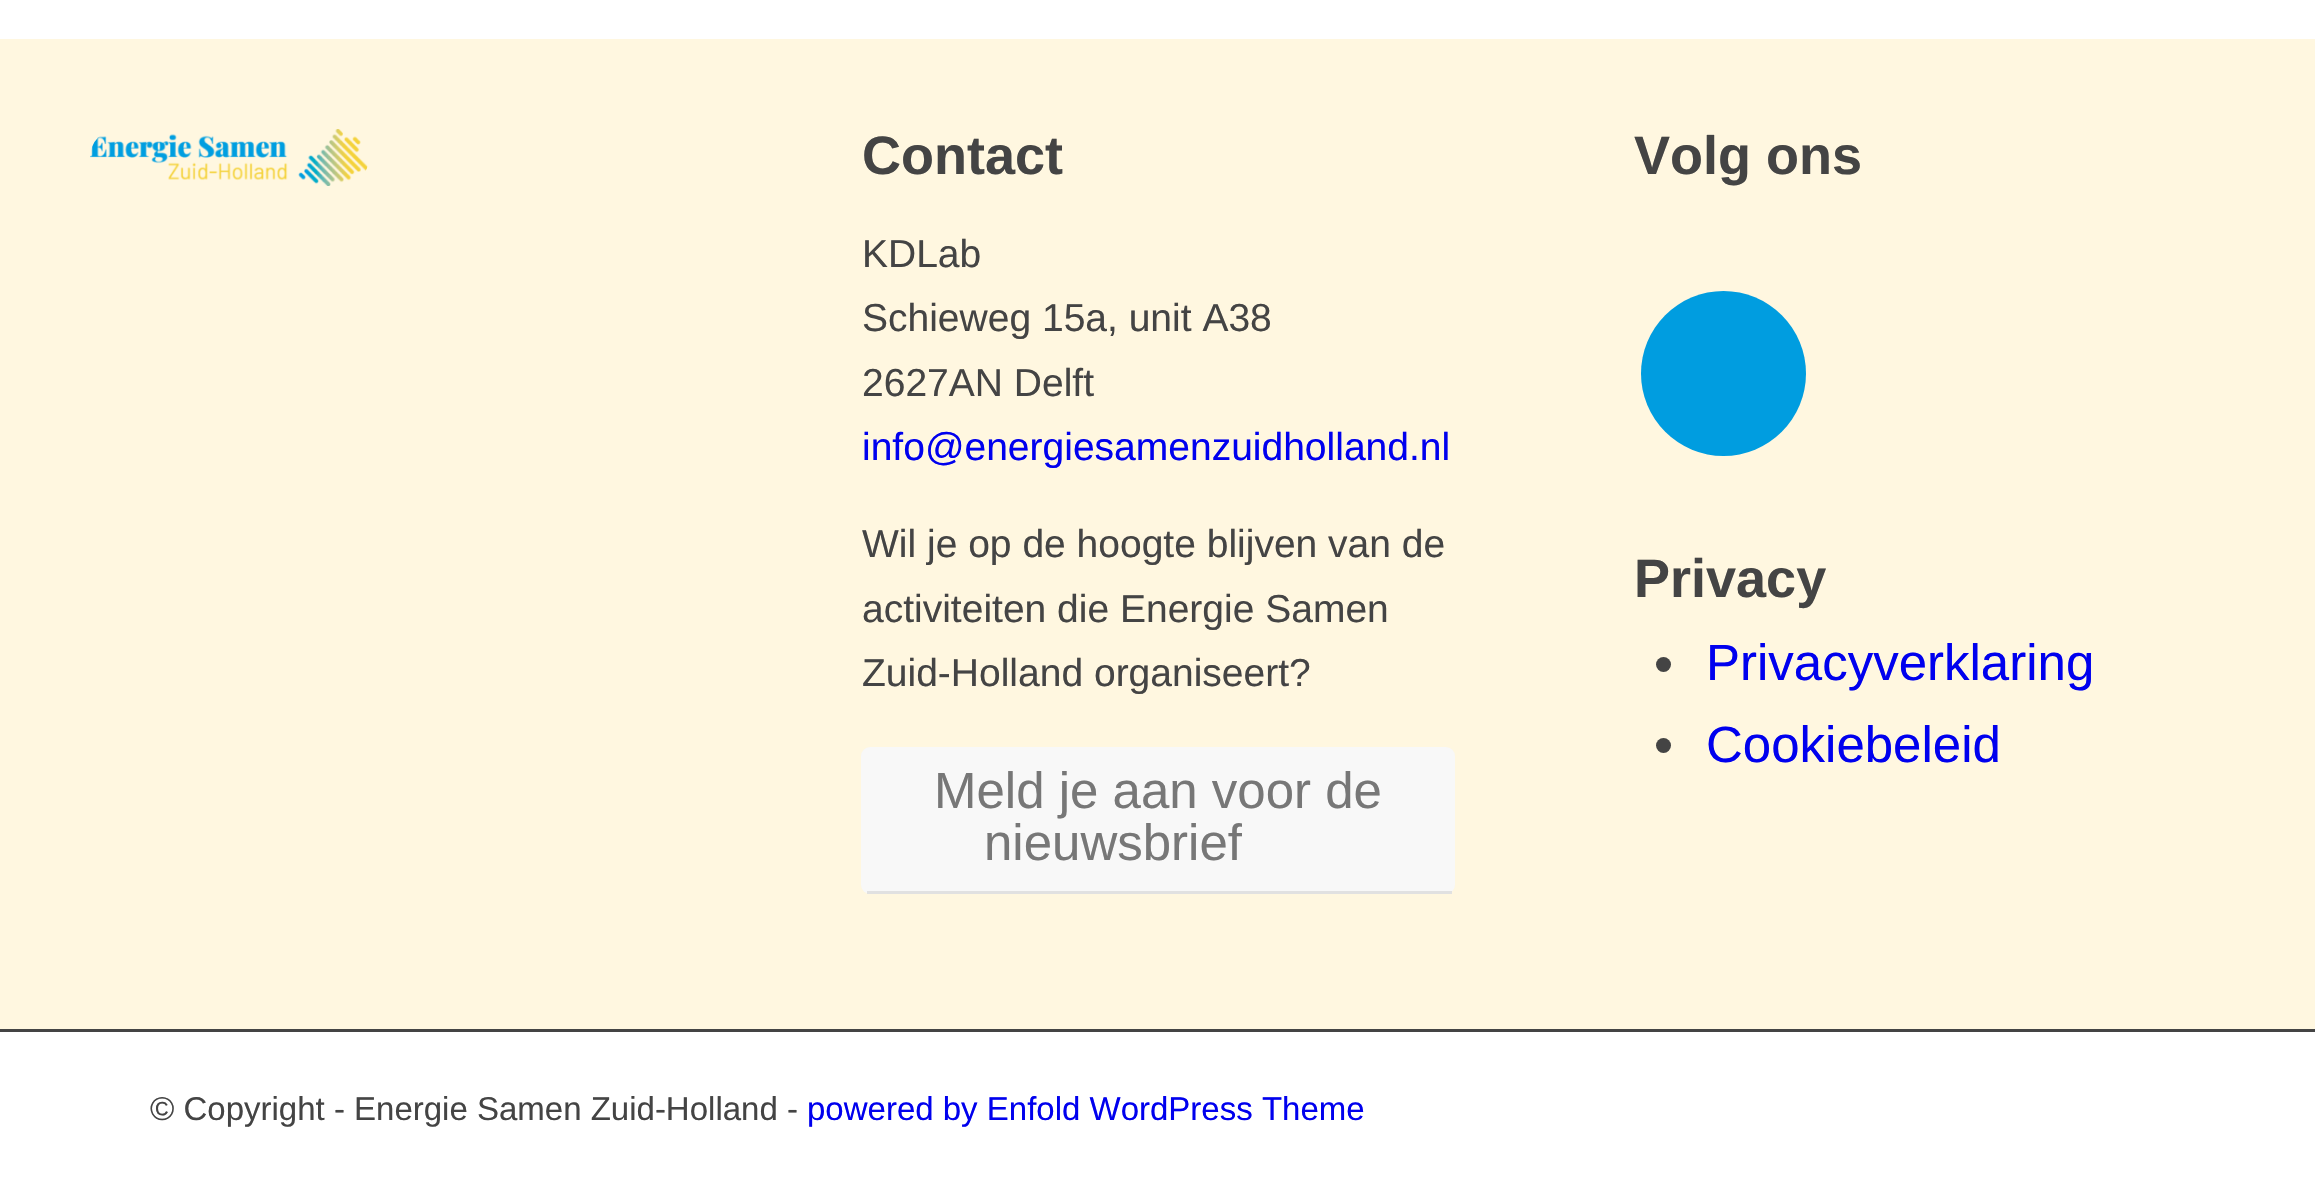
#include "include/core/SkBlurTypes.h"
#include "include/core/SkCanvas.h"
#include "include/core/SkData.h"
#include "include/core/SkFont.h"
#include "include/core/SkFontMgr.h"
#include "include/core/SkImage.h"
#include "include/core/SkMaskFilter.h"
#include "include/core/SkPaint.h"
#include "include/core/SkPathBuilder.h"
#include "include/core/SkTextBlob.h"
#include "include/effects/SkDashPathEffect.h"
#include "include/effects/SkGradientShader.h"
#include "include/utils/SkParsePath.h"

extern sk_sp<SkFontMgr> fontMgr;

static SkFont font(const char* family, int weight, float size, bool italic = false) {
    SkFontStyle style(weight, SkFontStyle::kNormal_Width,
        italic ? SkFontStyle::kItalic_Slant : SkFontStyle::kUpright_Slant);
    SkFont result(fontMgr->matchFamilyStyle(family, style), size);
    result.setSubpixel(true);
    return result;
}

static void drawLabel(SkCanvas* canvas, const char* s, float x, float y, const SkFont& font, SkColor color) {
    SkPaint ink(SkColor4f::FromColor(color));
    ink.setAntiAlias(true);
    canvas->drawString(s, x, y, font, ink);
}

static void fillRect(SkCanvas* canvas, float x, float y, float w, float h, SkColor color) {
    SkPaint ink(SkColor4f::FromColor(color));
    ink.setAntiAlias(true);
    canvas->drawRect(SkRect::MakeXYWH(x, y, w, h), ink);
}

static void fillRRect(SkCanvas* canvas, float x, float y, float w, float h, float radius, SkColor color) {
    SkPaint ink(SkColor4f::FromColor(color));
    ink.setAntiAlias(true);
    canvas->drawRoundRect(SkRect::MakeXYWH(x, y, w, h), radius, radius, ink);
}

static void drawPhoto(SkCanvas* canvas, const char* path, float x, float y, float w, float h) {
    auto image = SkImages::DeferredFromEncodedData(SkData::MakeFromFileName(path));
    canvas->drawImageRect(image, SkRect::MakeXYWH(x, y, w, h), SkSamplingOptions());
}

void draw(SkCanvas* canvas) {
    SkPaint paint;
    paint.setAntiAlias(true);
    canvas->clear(0xFFFFFFFF);
    fillRect(canvas, 0, 1029, 2315, 3, 0xFF444444);
    fillRect(canvas, 0, 39, 2315, 990, 0xFFFFF7E0);
    drawPhoto(canvas, "assets/img1.png", 90, 129, 278, 57);
    SkFont font1 = font("Liberation Sans", 700, 54);
    drawLabel(canvas, "Contact", 862, 174, font1, 0xFF444444);
    SkFont font2 = font("Liberation Sans", 400, 39);
    drawLabel(canvas, "KDLab", 862, 267, font2, 0xFF444444);
    drawLabel(canvas, "Schieweg 15a, unit A38", 862, 331, font2, 0xFF444444);
    drawLabel(canvas, "2627AN Delft", 862, 396, font2, 0xFF444444);
    drawLabel(canvas, "info@energiesamenzuidholland.nl", 862, 460, font2, 0xFF0000EE);
    drawLabel(canvas, "Wil je op de hoogte blijven van de", 862, 557, font2, 0xFF444444);
    drawLabel(canvas, "activiteiten die Energie Samen", 862, 622, font2, 0xFF444444);
    drawLabel(canvas, "Zuid-Holland organiseert?", 862, 686, font2, 0xFF444444);
    fillRRect(canvas, 861, 747, 594, 147, 9, 0xFFF8F8F8);
    fillRect(canvas, 867, 891, 585, 3, 0xFFE1E1E1);
    SkFont font3 = font("Liberation Sans", 400, 51);
    drawLabel(canvas, "Meld je aan voor de", 934, 808, font3, 0xFF777777);
    drawLabel(canvas, "nieuwsbrief", 984, 860, font3, 0xFF777777);
    drawLabel(canvas, "Volg ons", 1634, 174, font1, 0xFF444444);
    paint.setColor(0xFF009DE0);
    canvas->drawCircle(1723.5f, 373.5f, 82.5f, paint);
    drawLabel(canvas, "Privacy", 1634, 597, font1, 0xFF444444);
    paint.setColor(0xFF444444);
    canvas->drawCircle(1663.5f, 664.5f, 7.5f, paint);
    drawLabel(canvas, "Privacyverklaring", 1706, 680, font3, 0xFF0000EE);
    canvas->drawCircle(1663.5f, 745.5f, 7.5f, paint);
    drawLabel(canvas, "Cookiebeleid", 1706, 762, font3, 0xFF0000EE);
    SkFont font4 = font("Liberation Sans", 400, 33);
    drawLabel(canvas, "© Copyright - Energie Samen Zuid-Holland -", 150, 1120, font4, 0xFF444444);
    drawLabel(canvas, "powered by Enfold WordPress Theme", 807, 1120, font4, 0xFF0000EE);
}
